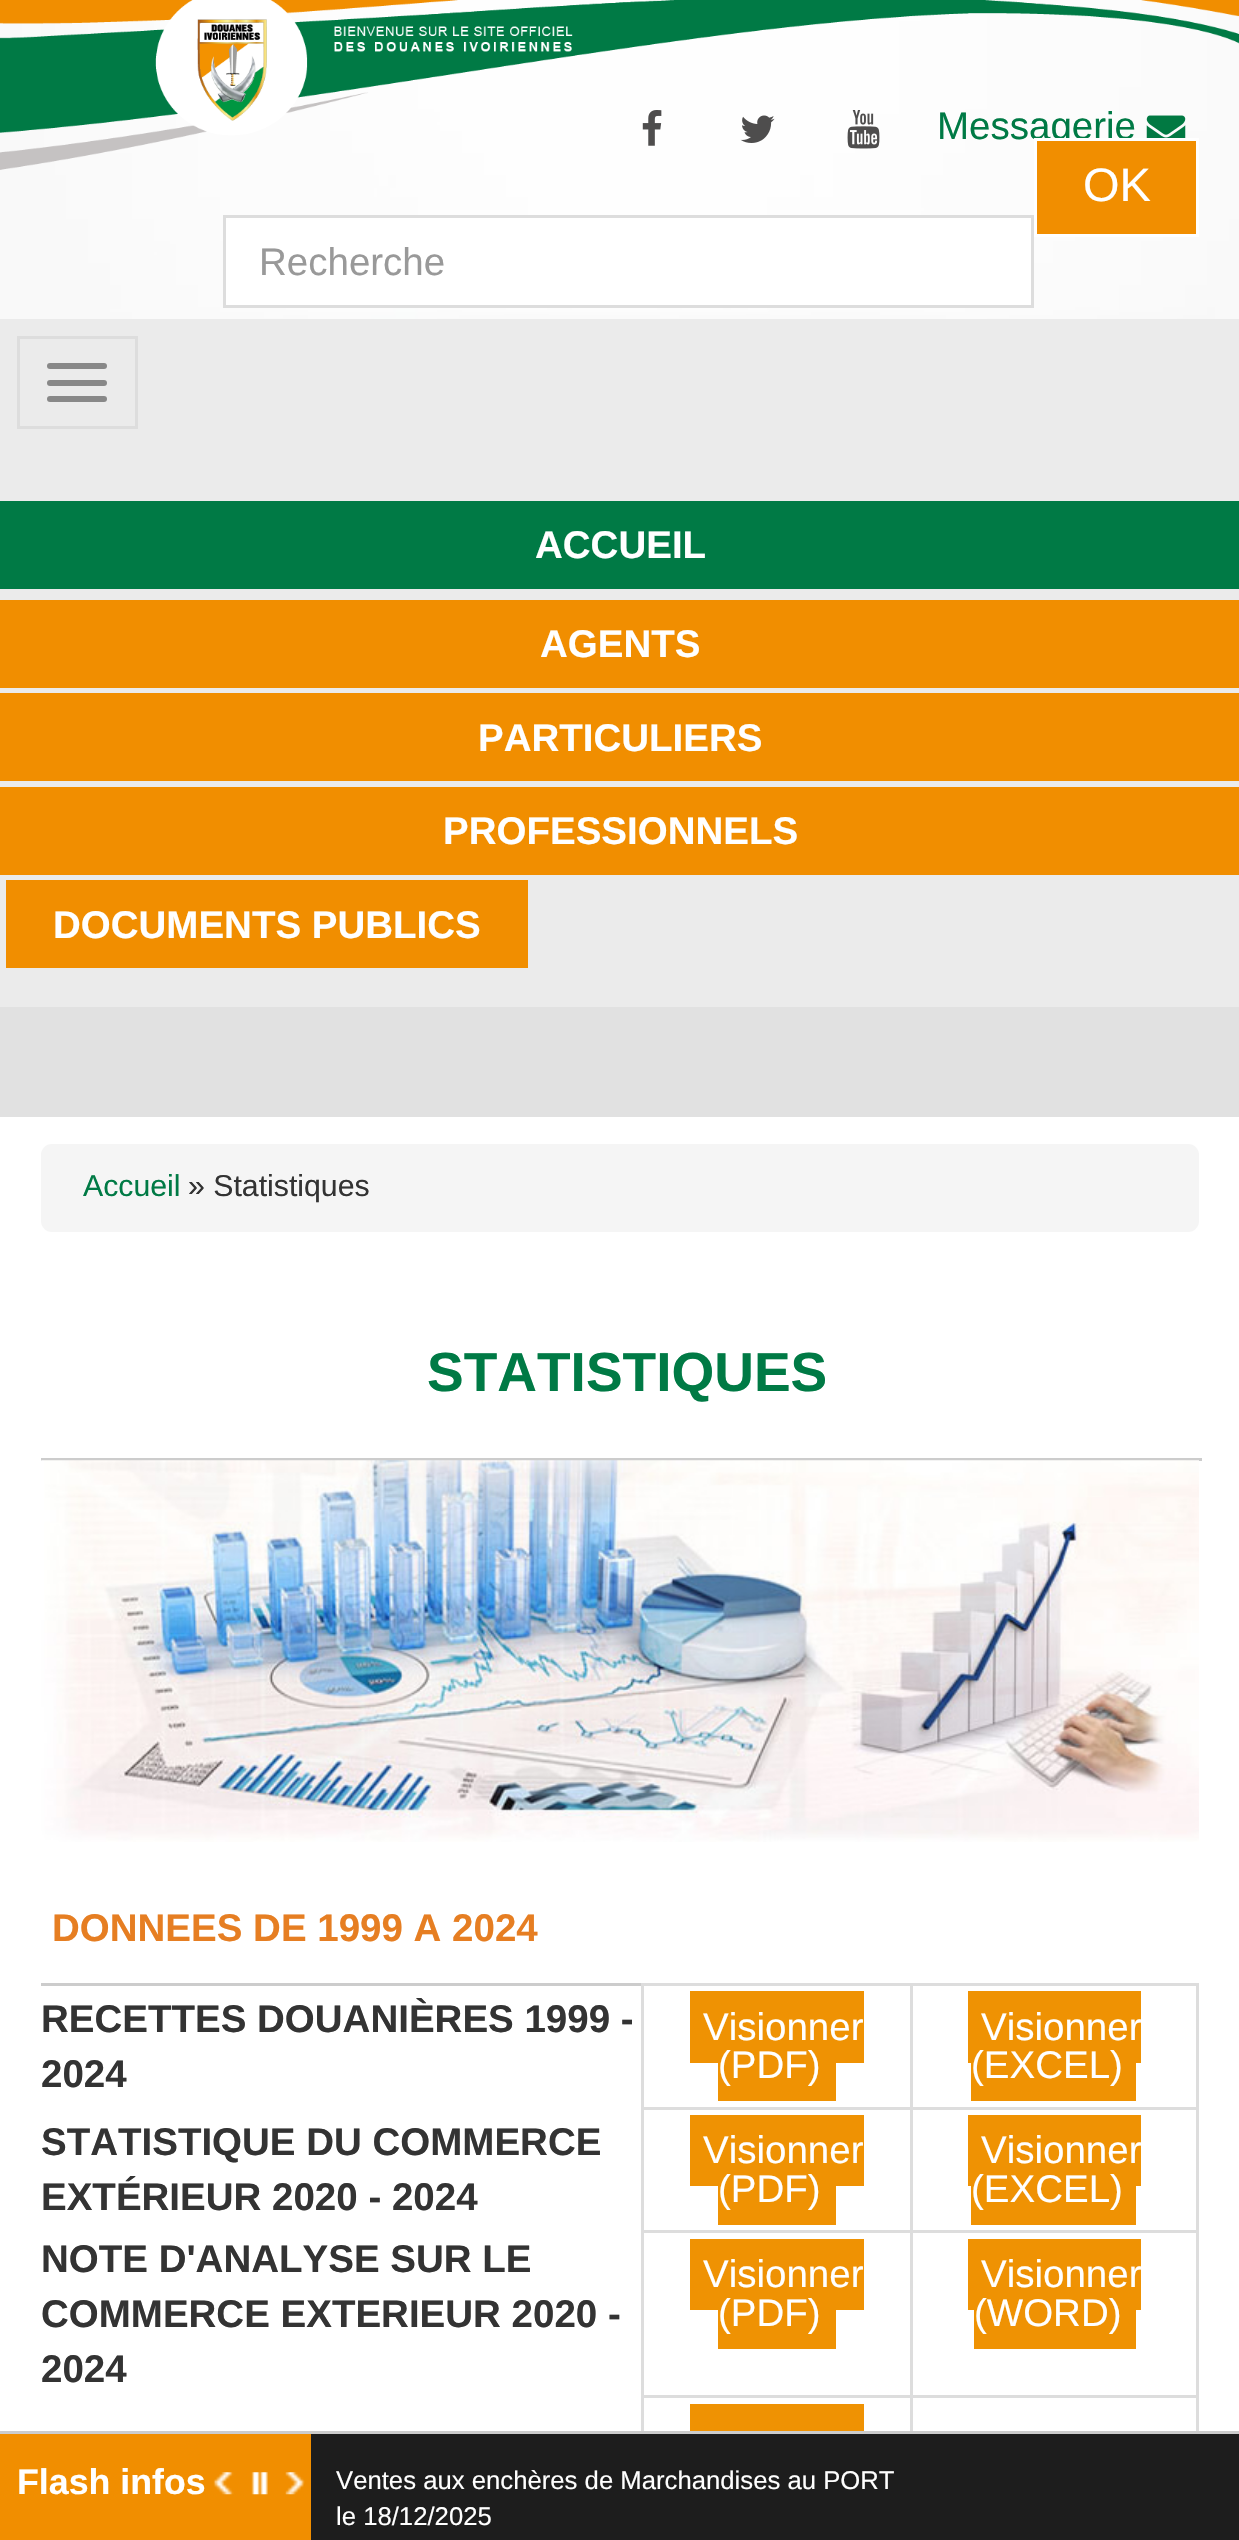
#include "include/core/SkBlurTypes.h"
#include "include/core/SkCanvas.h"
#include "include/core/SkData.h"
#include "include/core/SkFont.h"
#include "include/core/SkFontMgr.h"
#include "include/core/SkImage.h"
#include "include/core/SkMaskFilter.h"
#include "include/core/SkPaint.h"
#include "include/core/SkPathBuilder.h"
#include "include/core/SkTextBlob.h"
#include "include/effects/SkDashPathEffect.h"
#include "include/effects/SkGradientShader.h"
#include "include/utils/SkParsePath.h"

extern sk_sp<SkFontMgr> fontMgr;

static SkFont font(const char* family, int weight, float size, bool italic = false) {
    SkFontStyle style(weight, SkFontStyle::kNormal_Width,
        italic ? SkFontStyle::kItalic_Slant : SkFontStyle::kUpright_Slant);
    SkFont result(fontMgr->matchFamilyStyle(family, style), size);
    result.setSubpixel(true);
    return result;
}

static void drawLabel(SkCanvas* canvas, const char* s, float x, float y, const SkFont& font, SkColor color) {
    SkPaint ink(SkColor4f::FromColor(color));
    ink.setAntiAlias(true);
    canvas->drawString(s, x, y, font, ink);
}

static void fillRect(SkCanvas* canvas, float x, float y, float w, float h, SkColor color) {
    SkPaint ink(SkColor4f::FromColor(color));
    ink.setAntiAlias(true);
    canvas->drawRect(SkRect::MakeXYWH(x, y, w, h), ink);
}

static void fillRRect(SkCanvas* canvas, float x, float y, float w, float h, float radius, SkColor color) {
    SkPaint ink(SkColor4f::FromColor(color));
    ink.setAntiAlias(true);
    canvas->drawRoundRect(SkRect::MakeXYWH(x, y, w, h), radius, radius, ink);
}

static void drawPhoto(SkCanvas* canvas, const char* path, float x, float y, float w, float h) {
    auto image = SkImages::DeferredFromEncodedData(SkData::MakeFromFileName(path));
    canvas->drawImageRect(image, SkRect::MakeXYWH(x, y, w, h), SkSamplingOptions());
}

void draw(SkCanvas* canvas) {
    SkPaint paint;
    paint.setAntiAlias(true);
    canvas->clear(0xFFFFFFFF);
    drawPhoto(canvas, "assets/img1.png", 0, 0, 1239, 2431);
    drawPhoto(canvas, "assets/img2.png", 0, 0, 1239, 170);
    drawPhoto(canvas, "assets/img3.png", 642, 110, 20, 36);
    drawPhoto(canvas, "assets/img4.png", 740, 115, 35, 28);
    drawPhoto(canvas, "assets/img5.png", 847, 110, 33, 39);
    SkFont font1 = font("Liberation Sans", 400, 38.5f);
    drawLabel(canvas, "Messagerie", 937, 139, font1, 0xFF007A45);
    drawPhoto(canvas, "assets/img6.png", 1146, 115, 40, 23);
    paint.setColor(0xFFF18E00);
    canvas->drawRect(SkRect::MakeXYWH(1035.5f, 139.5f, 162, 96), paint);
    paint.setStroke(true);
    paint.setStrokeWidth(3);
    paint.setColor(0xFFFFFFFF);
    canvas->drawRect(SkRect::MakeXYWH(1035.5f, 139.5f, 162, 96), paint);
    SkFont font2 = font("Liberation Sans", 400, 47);
    drawLabel(canvas, "OK", 1083, 201, font2, 0xFFFFFFFF);
    paint.setStroke(false);
    canvas->drawRect(SkRect::MakeXYWH(224.5f, 216.5f, 808, 90), paint);
    paint.setStroke(true);
    paint.setColor(0xFFDDDDDD);
    canvas->drawRect(SkRect::MakeXYWH(224.5f, 216.5f, 808, 90), paint);
    drawLabel(canvas, "Recherche", 259, 275, font1, 0xFF999999);
    fillRect(canvas, 0, 319, 1239, 688, 0xFFEBEBEB);
    canvas->drawRect(SkRect::MakeXYWH(18.5f, 337.5f, 118, 90), paint);
    fillRRect(canvas, 47, 363, 60, 6, 3, 0xFF888888);
    fillRRect(canvas, 47, 380, 60, 6, 3, 0xFF888888);
    fillRRect(canvas, 47, 396, 60, 6, 3, 0xFF888888);
    fillRect(canvas, 0, 501, 1239, 88, 0xFF007A45);
    SkFont font3 = font("Liberation Sans", 700, 38.5f);
    drawLabel(canvas, "ACCUEIL", 535, 558, font3, 0xFFFFFFFF);
    fillRect(canvas, 0, 600, 1239, 88, 0xFFF18E00);
    drawLabel(canvas, "AGENTS", 540, 657, font3, 0xFFFFFFFF);
    fillRect(canvas, 0, 693, 1239, 88, 0xFFF18E00);
    drawLabel(canvas, "PARTICULIERS", 478, 751, font3, 0xFFFFFFFF);
    fillRect(canvas, 0, 787, 1239, 88, 0xFFF18E00);
    drawLabel(canvas, "PROFESSIONNELS", 443, 844, font3, 0xFFFFFFFF);
    fillRect(canvas, 6, 880, 522, 88, 0xFFF18E00);
    drawLabel(canvas, "DOCUMENTS PUBLICS", 53, 938, font3, 0xFFFFFFFF);
    fillRect(canvas, 0, 1007, 1239, 110, 0xFFE1E1E1);
    fillRRect(canvas, 41, 1144, 1158, 88, 11, 0xFFF5F5F5);
    SkFont font4 = font("Liberation Sans", 400, 30.25f);
    drawLabel(canvas, "Accueil", 83, 1196, font4, 0xFF007A45);
    drawLabel(canvas, "» Statistiques", 188, 1196, font4, 0xFF333333);
    SkFont font5 = font("Liberation Sans", 700, 55);
    drawLabel(canvas, "STATISTIQUES", 427, 1391, font5, 0xFF007A45);
    fillRect(canvas, 41, 1458, 1161, 3, 0xFFCCCCCC);
    drawPhoto(canvas, "assets/img7.png", 41, 1460, 1158, 382);
    drawLabel(canvas, "DONNEES DE 1999 A 2024", 52, 1941, font3, 0xFFE67E22);
    fillRect(canvas, 41, 1983, 600, 3, 0xFFCCCCCC);
    drawLabel(canvas, "RECETTES DOUANIÈRES 1999 -", 41, 2032, font3, 0xFF333333);
    drawLabel(canvas, "2024", 41, 2087, font3, 0xFF333333);
    fillRect(canvas, 910, 1983, 289, 3, 0xFFDDDDDD);
    fillRect(canvas, 910, 2107, 289, 3, 0xFFDDDDDD);
    fillRect(canvas, 910, 2230, 289, 3, 0xFFDDDDDD);
    fillRect(canvas, 910, 2395, 289, 3, 0xFFDDDDDD);
    fillRect(canvas, 910, 2395, 3, 36, 0xFFDDDDDD);
    fillRect(canvas, 641, 2395, 272, 3, 0xFFDDDDDD);
    fillRect(canvas, 910, 2230, 3, 168, 0xFFDDDDDD);
    fillRect(canvas, 641, 2230, 272, 3, 0xFFDDDDDD);
    fillRect(canvas, 910, 2107, 3, 126, 0xFFDDDDDD);
    fillRect(canvas, 641, 2107, 272, 3, 0xFFDDDDDD);
    fillRect(canvas, 910, 1983, 3, 126, 0xFFDDDDDD);
    fillRect(canvas, 641, 1983, 272, 3, 0xFFDDDDDD);
    fillRect(canvas, 641, 2395, 3, 36, 0xFFDDDDDD);
    fillRect(canvas, 641, 2230, 3, 168, 0xFFDDDDDD);
    fillRect(canvas, 641, 2107, 3, 126, 0xFFDDDDDD);
    fillRect(canvas, 641, 1983, 3, 126, 0xFFDDDDDD);
    fillRect(canvas, 690, 1991, 174, 72, 0xFFEF9203);
    drawLabel(canvas, "Visionner", 703, 2040, font1, 0xFFFFFFFF);
    fillRect(canvas, 718, 2063, 118, 38, 0xFFEF9203);
    drawLabel(canvas, "(PDF)", 718, 2078, font1, 0xFFFFFFFF);
    fillRect(canvas, 1196, 2395, 3, 36, 0xFFDDDDDD);
    fillRect(canvas, 1196, 2230, 3, 168, 0xFFDDDDDD);
    fillRect(canvas, 1196, 2107, 3, 126, 0xFFDDDDDD);
    fillRect(canvas, 1196, 1983, 3, 126, 0xFFDDDDDD);
    fillRect(canvas, 968, 1991, 173, 72, 0xFFEF9203);
    drawLabel(canvas, "Visionner", 981, 2040, font1, 0xFFFFFFFF);
    fillRect(canvas, 971, 2063, 165, 38, 0xFFEF9203);
    drawLabel(canvas, "(EXCEL)", 971, 2078, font1, 0xFFFFFFFF);
    drawLabel(canvas, "STATISTIQUE DU COMMERCE", 41, 2155, font3, 0xFF333333);
    drawLabel(canvas, "EXTÉRIEUR 2020 - 2024", 41, 2210, font3, 0xFF333333);
    fillRect(canvas, 690, 2115, 174, 71, 0xFFEF9203);
    drawLabel(canvas, "Visionner", 703, 2163, font1, 0xFFFFFFFF);
    fillRect(canvas, 718, 2186, 118, 39, 0xFFEF9203);
    drawLabel(canvas, "(PDF)", 718, 2202, font1, 0xFFFFFFFF);
    fillRect(canvas, 968, 2115, 173, 71, 0xFFEF9203);
    drawLabel(canvas, "Visionner", 981, 2163, font1, 0xFFFFFFFF);
    fillRect(canvas, 971, 2186, 165, 39, 0xFFEF9203);
    drawLabel(canvas, "(EXCEL)", 971, 2202, font1, 0xFFFFFFFF);
    drawLabel(canvas, "NOTE D'ANALYSE SUR LE", 41, 2272, font3, 0xFF333333);
    drawLabel(canvas, "COMMERCE EXTERIEUR 2020 -", 41, 2327, font3, 0xFF333333);
    drawLabel(canvas, "2024", 41, 2382, font3, 0xFF333333);
    fillRect(canvas, 690, 2239, 174, 71, 0xFFEF9203);
    drawLabel(canvas, "Visionner", 703, 2287, font1, 0xFFFFFFFF);
    fillRect(canvas, 718, 2310, 118, 39, 0xFFEF9203);
    drawLabel(canvas, "(PDF)", 718, 2326, font1, 0xFFFFFFFF);
    fillRect(canvas, 968, 2239, 173, 71, 0xFFEF9203);
    drawLabel(canvas, "Visionner", 981, 2287, font1, 0xFFFFFFFF);
    fillRect(canvas, 974, 2310, 162, 39, 0xFFEF9203);
    drawLabel(canvas, "(WORD)", 974, 2326, font1, 0xFFFFFFFF);
    fillRect(canvas, 690, 2404, 174, 27, 0xFFEF9203);
    fillRect(canvas, 0, 2431, 1239, 3, 0xFFCCCCCC);
    fillRect(canvas, 0, 2434, 311, 106, 0xFFF18E00);
    SkFont font6 = font("Liberation Sans", 700, 35.75f);
    drawLabel(canvas, "Flash infos", 17, 2494, font6, 0xFFFFFFFF);
    fillRect(canvas, 311, 2434, 928, 106, 0xFF1D1D1D);
    SkFont font7 = font("Liberation Sans", 400, 25.7f);
    drawLabel(canvas, "Ventes aux enchères de Marchandises au PORT", 336, 2489, font7, 0xFFFFFFFF);
    drawLabel(canvas, "le 18/12/2025", 336, 2525, font7, 0xFFFFFFFF);
    drawPhoto(canvas, "assets/img8.png", 213, 2472, 21, 23);
    drawPhoto(canvas, "assets/img9.png", 251, 2472, 17, 23);
    drawPhoto(canvas, "assets/img10.png", 285, 2472, 20, 23);
}
